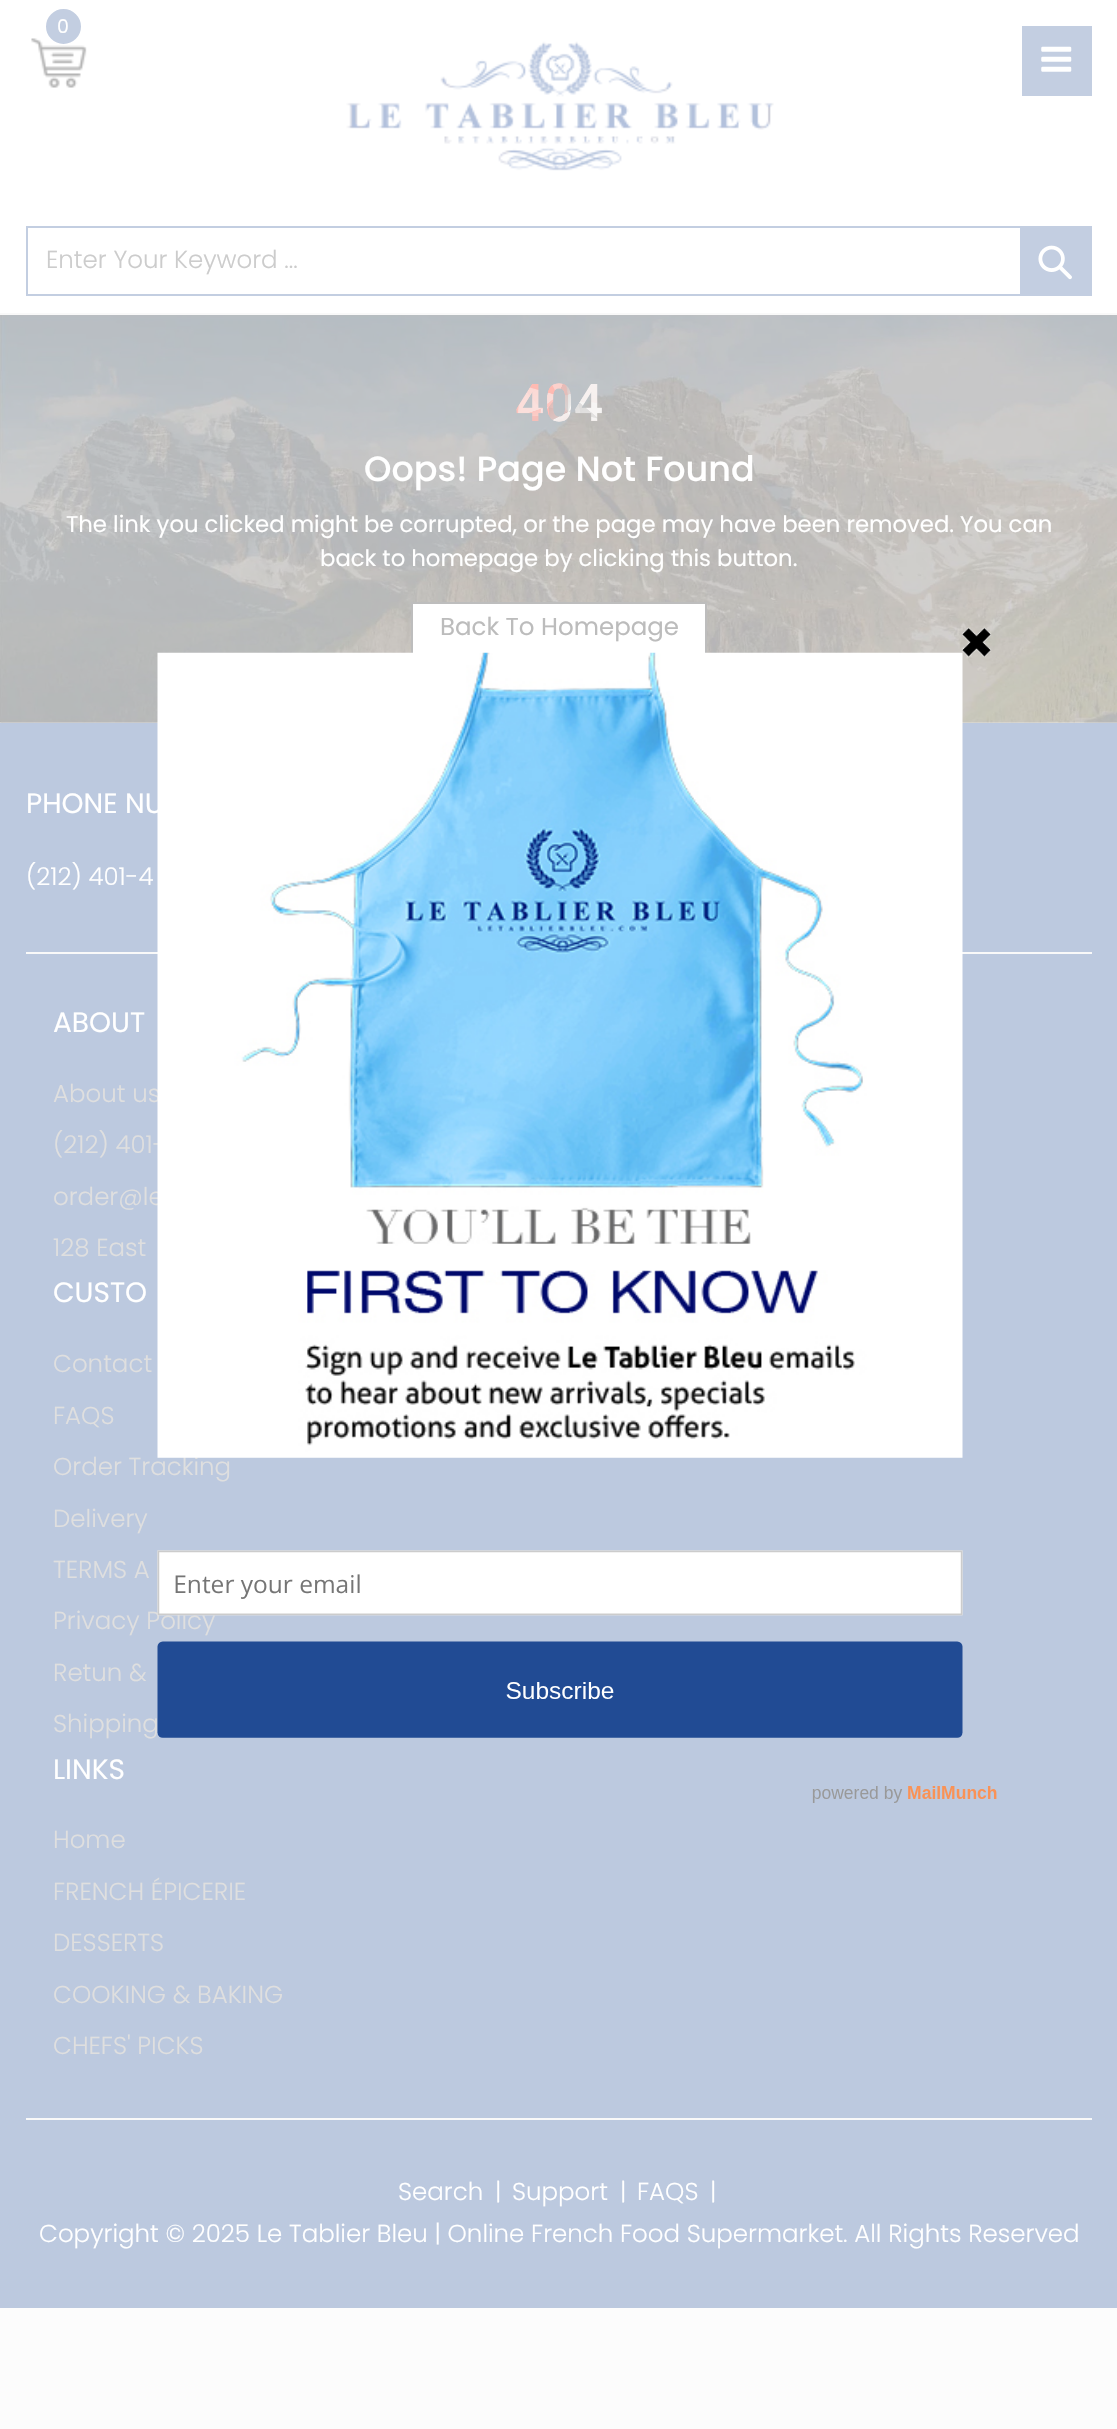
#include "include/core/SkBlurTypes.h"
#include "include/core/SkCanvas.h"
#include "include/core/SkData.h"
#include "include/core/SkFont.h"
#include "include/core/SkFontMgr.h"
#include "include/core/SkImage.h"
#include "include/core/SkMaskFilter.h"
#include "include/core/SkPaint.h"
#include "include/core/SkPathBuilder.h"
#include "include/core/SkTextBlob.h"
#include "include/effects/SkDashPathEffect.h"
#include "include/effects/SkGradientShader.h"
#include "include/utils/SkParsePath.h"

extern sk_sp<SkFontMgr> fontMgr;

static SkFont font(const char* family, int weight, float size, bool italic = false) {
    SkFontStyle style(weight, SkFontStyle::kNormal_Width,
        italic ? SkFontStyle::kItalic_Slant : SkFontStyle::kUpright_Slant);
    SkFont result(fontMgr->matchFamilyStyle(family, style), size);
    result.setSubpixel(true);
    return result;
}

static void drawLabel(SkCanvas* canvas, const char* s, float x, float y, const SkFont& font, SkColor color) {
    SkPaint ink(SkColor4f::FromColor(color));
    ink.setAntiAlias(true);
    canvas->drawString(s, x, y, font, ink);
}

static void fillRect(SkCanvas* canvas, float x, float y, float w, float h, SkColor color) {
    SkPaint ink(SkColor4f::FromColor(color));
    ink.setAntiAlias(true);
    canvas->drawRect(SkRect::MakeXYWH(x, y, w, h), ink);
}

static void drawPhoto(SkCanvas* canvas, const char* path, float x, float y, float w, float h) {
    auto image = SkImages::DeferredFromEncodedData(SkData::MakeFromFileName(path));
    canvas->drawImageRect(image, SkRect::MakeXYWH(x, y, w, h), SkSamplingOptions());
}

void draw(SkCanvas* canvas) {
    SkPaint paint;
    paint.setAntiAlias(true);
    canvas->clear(0xFFFCFCFC);
    fillRect(canvas, 0, 0, 1117, 313, 0xFFFFFFFF);
    drawPhoto(canvas, "assets/img1.png", 31, 38, 56, 50);
    paint.setColor(0xFFC3CEE1);
    canvas->drawCircle(63.5f, 26.5f, 16.5f, paint);
    paint.setStroke(true);
    paint.setStrokeWidth(2);
    canvas->drawCircle(63.5f, 26.5f, 16.5f, paint);
    SkFont font1 = font("Poppins", 400, 19);
    drawLabel(canvas, "0", 57, 33, font1, 0xFFFFFFFF);
    drawPhoto(canvas, "assets/img2.png", 346, 41, 428, 130);
    fillRect(canvas, 1022, 26, 70, 70, 0xFFC3CEE1);
    drawPhoto(canvas, "assets/img3.png", 1041, 46, 31, 26);
    canvas->drawRect(SkRect::MakeXYWH(27, 227, 1064, 68), paint);
    SkFont font2 = font("Poppins", 300, 24.5f);
    drawLabel(canvas, "Enter Your Keyword ...", 46, 268, font2, 0xFFCCCCCC);
    fillRect(canvas, 1020, 228, 70, 66, 0xFFC3CEE1);
    drawPhoto(canvas, "assets/img4.png", 1038, 245, 34, 35);
    fillRect(canvas, 0, 313, 1117, 2, 0xFFF9F9F9);
    drawPhoto(canvas, "assets/img5.png", 0, 315, 1117, 408);
    drawPhoto(canvas, "assets/img6.png", 516, 383, 86, 39);
    SkFont font3 = font("Poppins", 500, 35);
    drawLabel(canvas, "Oops! Page Not Found", 364, 481, font3, 0xFFFFFFFF);
    SkFont font4 = font("Poppins", 400, 22.75f);
    drawLabel(canvas, "The link you clicked might be corrupted, or the page may have been removed. You can", 66, 532, font4, 0xFFFFFFFF);
    drawLabel(canvas, "back to homepage by clicking this button.", 320, 566, font4, 0xFFFFFFFF);
    paint.setStroke(false);
    paint.setColor(0xFFFFFFFF);
    canvas->drawRect(SkRect::MakeXYWH(412, 603, 294, 51), paint);
    paint.setStroke(true);
    paint.setColor(0xFFBDBDBD);
    canvas->drawRect(SkRect::MakeXYWH(412, 603, 294, 51), paint);
    SkFont font5 = font("Poppins", 400, 24.5f);
    drawLabel(canvas, "Back To Homepage", 440, 635, font5, 0xFFBCBCBC);
    fillRect(canvas, 0, 723, 1117, 1585, 0xFFBCC9DF);
    SkFont font6 = font("Poppins", 400, 28);
    drawLabel(canvas, "PHONE NU", 26, 813, font6, 0xFFFFFFFF);
    fillRect(canvas, 26, 952, 1066, 2, 0xFFF9F9F9);
    drawLabel(canvas, "About us", 53, 1102, font2, 0xFFDFDFDF);
    drawLabel(canvas, "(212) 401-", 53, 1153, font2, 0xFFDFDFDF);
    drawLabel(canvas, "order@le", 53, 1205, font2, 0xFFDFDFDF);
    drawLabel(canvas, "Order Tracking", 53, 1475, font2, 0xFFDFDFDF);
    drawLabel(canvas, "Privacy Policy", 53, 1629, font2, 0xFFDFDFDF);
    drawPhoto(canvas, "assets/img7.png", 157, 627, 840, 1176);
    drawLabel(canvas, "(212) 401-4", 26, 885, font2, 0xFFFFFFFF);
    drawLabel(canvas, "ABOUT", 53, 1032, font6, 0xFFFFFFFF);
    drawLabel(canvas, "128 East", 53, 1256, font2, 0xFFDFDFDF);
    drawLabel(canvas, "CUSTO", 53, 1302, font6, 0xFFFFFFFF);
    drawLabel(canvas, "Contact", 53, 1372, font2, 0xFFDFDFDF);
    drawLabel(canvas, "FAQS", 53, 1424, font2, 0xFFDFDFDF);
    drawLabel(canvas, "Delivery", 53, 1527, font2, 0xFFDFDFDF);
    drawLabel(canvas, "TERMS A", 53, 1578, font2, 0xFFDFDFDF);
    drawLabel(canvas, "Retun &", 53, 1681, font2, 0xFFDFDFDF);
    drawLabel(canvas, "Shipping", 53, 1732, font2, 0xFFDFDFDF);
    drawLabel(canvas, "LINKS", 53, 1779, font6, 0xFFFFFFFF);
    drawLabel(canvas, "Home", 53, 1848, font2, 0xFFDFDFDF);
    drawLabel(canvas, "FRENCH ÉPICERIE", 53, 1900, font2, 0xFFDFDFDF);
    drawLabel(canvas, "DESSERTS", 53, 1951, font2, 0xFFDFDFDF);
    drawLabel(canvas, "COOKING & BAKING", 53, 2003, font2, 0xFFDFDFDF);
    drawLabel(canvas, "CHEFS' PICKS", 53, 2054, font2, 0xFFDFDFDF);
    fillRect(canvas, 26, 2118, 1066, 2, 0xFFF9F9F9);
    drawLabel(canvas, "Search", 398, 2200, font2, 0xFFFFFFFF);
    drawLabel(canvas, "|", 495, 2200, font2, 0xFFFFFFFF);
    drawLabel(canvas, "Support", 512, 2200, font2, 0xFFFFFFFF);
    drawLabel(canvas, "|", 620, 2200, font2, 0xFFFFFFFF);
    drawLabel(canvas, "FAQS", 637, 2200, font2, 0xFFFFFFFF);
    drawLabel(canvas, "|", 710, 2200, font2, 0xFFFFFFFF);
    drawLabel(canvas, "Copyright © 2025 Le Tablier Bleu | Online French Food Supermarket. All Rights Reserved", 39, 2242, font2, 0xFFFFFFFF);
}
